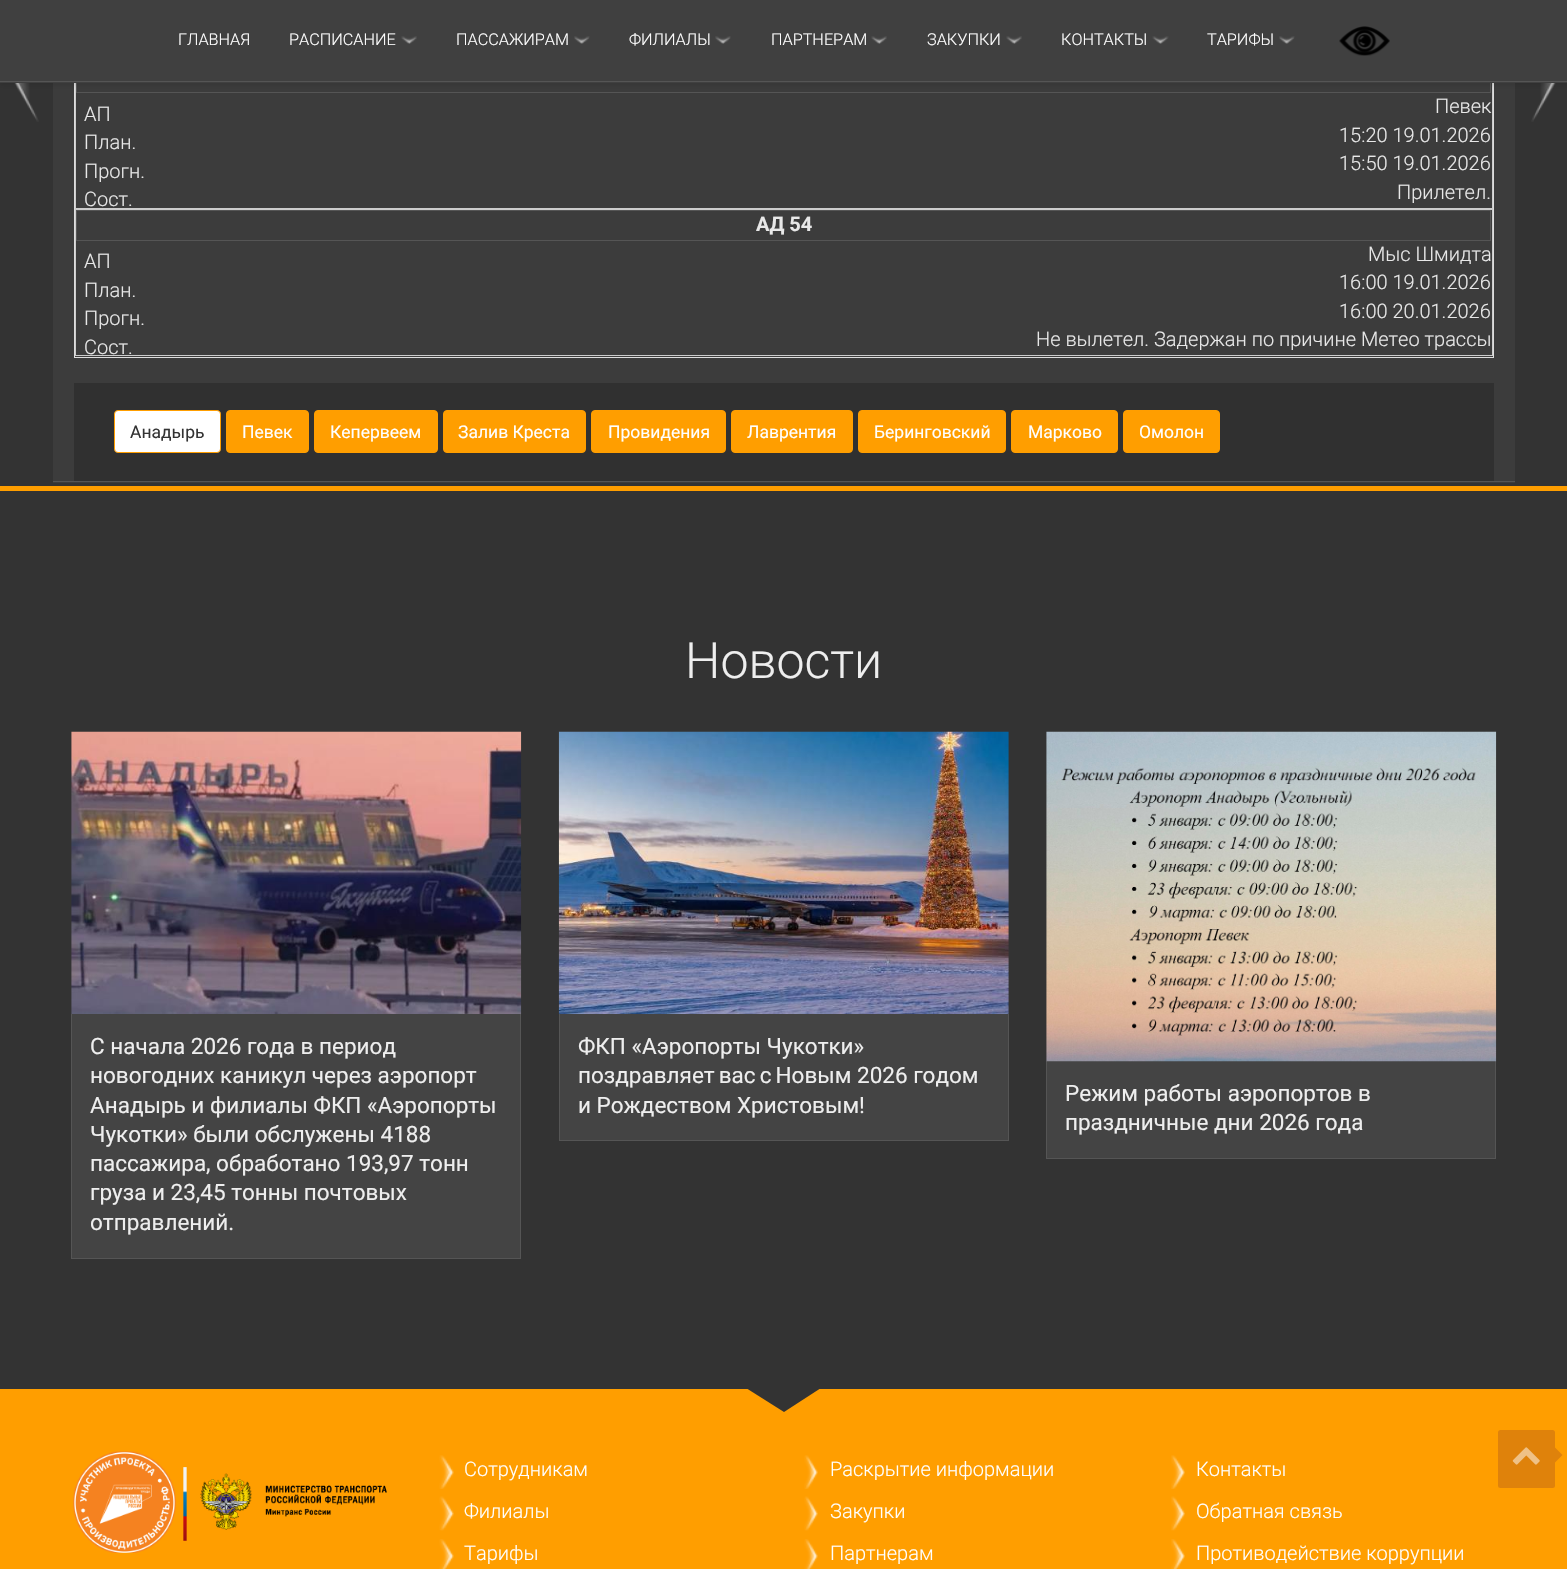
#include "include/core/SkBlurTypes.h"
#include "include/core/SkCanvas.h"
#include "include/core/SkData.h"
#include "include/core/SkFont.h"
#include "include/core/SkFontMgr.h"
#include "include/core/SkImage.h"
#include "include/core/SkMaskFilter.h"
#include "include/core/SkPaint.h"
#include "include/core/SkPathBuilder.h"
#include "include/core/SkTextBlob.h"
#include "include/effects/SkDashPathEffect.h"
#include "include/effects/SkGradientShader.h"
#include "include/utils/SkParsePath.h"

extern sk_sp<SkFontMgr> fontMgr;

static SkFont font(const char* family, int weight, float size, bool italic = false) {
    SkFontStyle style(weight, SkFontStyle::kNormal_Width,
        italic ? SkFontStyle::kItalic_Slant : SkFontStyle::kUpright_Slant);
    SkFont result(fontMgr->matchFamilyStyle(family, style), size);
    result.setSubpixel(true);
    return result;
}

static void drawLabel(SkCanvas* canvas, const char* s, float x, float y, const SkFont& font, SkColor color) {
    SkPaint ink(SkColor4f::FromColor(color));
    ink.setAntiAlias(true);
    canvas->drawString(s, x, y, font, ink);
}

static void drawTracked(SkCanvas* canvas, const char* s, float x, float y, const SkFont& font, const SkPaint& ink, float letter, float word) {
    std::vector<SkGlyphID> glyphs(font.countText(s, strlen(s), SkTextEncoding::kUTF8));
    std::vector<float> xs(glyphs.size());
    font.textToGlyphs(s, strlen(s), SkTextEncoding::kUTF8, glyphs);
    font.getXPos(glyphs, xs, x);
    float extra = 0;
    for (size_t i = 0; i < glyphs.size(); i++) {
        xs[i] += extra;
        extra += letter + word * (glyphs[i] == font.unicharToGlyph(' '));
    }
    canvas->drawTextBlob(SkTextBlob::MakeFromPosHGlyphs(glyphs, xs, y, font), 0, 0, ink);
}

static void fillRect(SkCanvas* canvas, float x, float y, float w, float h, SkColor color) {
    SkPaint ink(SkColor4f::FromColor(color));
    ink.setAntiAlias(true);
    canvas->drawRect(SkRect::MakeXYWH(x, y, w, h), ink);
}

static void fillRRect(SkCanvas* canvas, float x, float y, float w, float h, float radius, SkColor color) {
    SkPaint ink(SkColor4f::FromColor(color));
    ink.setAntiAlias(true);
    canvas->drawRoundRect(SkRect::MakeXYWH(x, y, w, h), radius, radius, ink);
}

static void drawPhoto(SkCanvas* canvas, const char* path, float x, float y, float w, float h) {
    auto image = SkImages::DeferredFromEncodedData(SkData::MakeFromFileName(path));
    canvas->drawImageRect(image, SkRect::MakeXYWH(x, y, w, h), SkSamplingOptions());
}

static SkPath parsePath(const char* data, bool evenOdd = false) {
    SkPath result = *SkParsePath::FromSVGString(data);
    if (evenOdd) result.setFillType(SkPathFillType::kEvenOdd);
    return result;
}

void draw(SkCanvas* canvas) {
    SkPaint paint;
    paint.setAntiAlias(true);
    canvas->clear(0xFF333333);
    drawPhoto(canvas, "assets/img7.png", 14, 83, 25, 39);
    drawPhoto(canvas, "assets/img8.png", 1531, 83, 25, 39);
    fillRect(canvas, 53, 83, 1462, 400, 0xFF3C3C3C);
    paint.setStroke(true);
    paint.setStrokeWidth(1);
    paint.setColor(0xFFDDDDDD);
    canvas->drawRect(SkRect::MakeXYWH(74.5f, -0.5f, 1419, 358), paint);
    paint.setColor(0xFFCCCCCC);
    canvas->drawRect(SkRect::MakeXYWH(75.5f, 61.5f, 1417, 147), paint);
    paint.setColor(0xFF555555);
    canvas->drawRect(SkRect::MakeXYWH(76.5f, 63.5f, 1414, 29), paint);
    paint.setStroke(false);
    paint.setColor(0x1A000000);
    paint.setMaskFilter(SkMaskFilter::MakeBlur(kNormal_SkBlurStyle, 2.5f));
    canvas->drawRect(SkRect::MakeXYWH(0, 3, 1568, 82), paint);
    paint.setMaskFilter(nullptr);
    fillRect(canvas, 0, 0, 1567, 83, 0xFF404040);
    fillRect(canvas, 0, 81, 1567, 1, 0xFF555555);
    SkFont font1 = font("Roboto", 300, 16.25f);
    drawLabel(canvas, "ГЛАВНАЯ", 178, 45, font1, 0xFFFFFFFF);
    drawLabel(canvas, "РАСПИСАНИЕ", 289, 45, font1, 0xFFFFFFFF);
    drawPhoto(canvas, "assets/img1.png", 401, 36, 16, 8);
    drawLabel(canvas, "ПАССАЖИРАМ", 456, 45, font1, 0xFFFFFFFF);
    drawPhoto(canvas, "assets/img2.png", 574, 36, 16, 8);
    drawLabel(canvas, "ФИЛИАЛЫ", 629, 45, font1, 0xFFFFFFFF);
    drawPhoto(canvas, "assets/img3.png", 715, 36, 16, 8);
    drawLabel(canvas, "ПАРТНЕРАМ", 771, 45, font1, 0xFFFFFFFF);
    drawPhoto(canvas, "assets/img1.png", 871, 36, 16, 8);
    drawLabel(canvas, "ЗАКУПКИ", 927, 45, font1, 0xFFFFFFFF);
    drawPhoto(canvas, "assets/img1.png", 1006, 36, 16, 8);
    drawLabel(canvas, "КОНТАКТЫ", 1061, 45, font1, 0xFFFFFFFF);
    drawPhoto(canvas, "assets/img4.png", 1152, 36, 17, 8);
    drawLabel(canvas, "ТАРИФЫ", 1207, 45, font1, 0xFFFFFFFF);
    drawPhoto(canvas, "assets/img2.png", 1279, 36, 16, 8);
    drawPhoto(canvas, "assets/img5.png", 1339, 26, 51, 30);
    fillRect(canvas, 0, 1389, 1567, 180, 0xFFFF9E00);
    fillRRect(canvas, 1498, 1430, 57, 58, 2.5f, 0xFFDF820B);
    drawPhoto(canvas, "assets/img6.png", 1512, 1447, 28, 18);
    paint.setColor(0xFFDF820B);
    canvas->drawPath(parsePath("M1555 1462.5V1447.5L1562.5 1455Z"), paint);
    fillRect(canvas, 0, 486, 1567, 5, 0xFFFF9E00);
    fillRect(canvas, 53, 481, 1462, 1, 0xFF555555);
    SkFont font2 = font("Roboto", 300, 20);
    drawLabel(canvas, "АП", 84, 121, font2, 0xFFE8E8E8);
    drawLabel(canvas, "Певек", 1435, 113, font2, 0xFFE8E8E8);
    drawLabel(canvas, "План.", 84, 149, font2, 0xFFE8E8E8);
    drawLabel(canvas, "15:20 19.01.2026", 1339, 142, font2, 0xFFE8E8E8);
    drawLabel(canvas, "Прогн.", 84, 178, font2, 0xFFE8E8E8);
    drawLabel(canvas, "15:50 19.01.2026", 1339, 170, font2, 0xFFE8E8E8);
    drawLabel(canvas, "Сост.", 84, 206, font2, 0xFFE8E8E8);
    drawLabel(canvas, "Прилетел.", 1397, 199, font2, 0xFFE8E8E8);
    paint.setStroke(true);
    paint.setColor(0xFFCCCCCC);
    canvas->drawRect(SkRect::MakeXYWH(75.5f, 209.5f, 1417, 146), paint);
    paint.setColor(0xFF555555);
    canvas->drawRect(SkRect::MakeXYWH(76.5f, 210.5f, 1414, 30), paint);
    SkFont font3 = font("Roboto", 700, 20);
    drawLabel(canvas, "АД 54", 756, 231, font3, 0xFFE8E8E8);
    drawLabel(canvas, "АП", 84, 268, font2, 0xFFE8E8E8);
    drawLabel(canvas, "Мыс Шмидта", 1368, 261, font2, 0xFFE8E8E8);
    drawLabel(canvas, "План.", 84, 297, font2, 0xFFE8E8E8);
    drawLabel(canvas, "16:00 19.01.2026", 1339, 289, font2, 0xFFE8E8E8);
    drawLabel(canvas, "Прогн.", 84, 325, font2, 0xFFE8E8E8);
    drawLabel(canvas, "16:00 20.01.2026", 1339, 318, font2, 0xFFE8E8E8);
    drawLabel(canvas, "Сост.", 84, 354, font2, 0xFFE8E8E8);
    drawLabel(canvas, "Не вылетел. Задержан по причине Метео трассы", 1036, 346, font2, 0xFFE8E8E8);
    fillRect(canvas, 74, 383, 1420, 98, 0xFF303030);
    paint.setStroke(false);
    paint.setColor(0xFFFFFFFF);
    canvas->drawRoundRect(SkRect::MakeXYWH(114.5f, 410.5f, 106, 42), 3.5f, 3.5f, paint);
    paint.setStroke(true);
    paint.setColor(0xFFFF9E00);
    canvas->drawRoundRect(SkRect::MakeXYWH(114.5f, 410.5f, 106, 42), 3.5f, 3.5f, paint);
    SkFont font4 = font("Roboto", 400, 17.5f);
    drawLabel(canvas, "Анадырь", 130, 438, font4, 0xFF333333);
    paint.setStroke(false);
    canvas->drawRoundRect(SkRect::MakeXYWH(226.5f, 410.5f, 82, 42), 3.5f, 3.5f, paint);
    paint.setStroke(true);
    canvas->drawRoundRect(SkRect::MakeXYWH(226.5f, 410.5f, 82, 42), 3.5f, 3.5f, paint);
    drawLabel(canvas, "Певек", 242, 438, font4, 0xFFFFFFFF);
    paint.setStroke(false);
    canvas->drawRoundRect(SkRect::MakeXYWH(314.5f, 410.5f, 123, 42), 3.5f, 3.5f, paint);
    paint.setStroke(true);
    canvas->drawRoundRect(SkRect::MakeXYWH(314.5f, 410.5f, 123, 42), 3.5f, 3.5f, paint);
    drawLabel(canvas, "Кепервеем", 330, 438, font4, 0xFFFFFFFF);
    paint.setStroke(false);
    canvas->drawRoundRect(SkRect::MakeXYWH(443.5f, 410.5f, 142, 42), 3.5f, 3.5f, paint);
    paint.setStroke(true);
    canvas->drawRoundRect(SkRect::MakeXYWH(443.5f, 410.5f, 142, 42), 3.5f, 3.5f, paint);
    drawLabel(canvas, "Залив Креста", 458, 438, font4, 0xFFFFFFFF);
    paint.setStroke(false);
    canvas->drawRoundRect(SkRect::MakeXYWH(591.5f, 410.5f, 134, 42), 3.5f, 3.5f, paint);
    paint.setStroke(true);
    canvas->drawRoundRect(SkRect::MakeXYWH(591.5f, 410.5f, 134, 42), 3.5f, 3.5f, paint);
    drawLabel(canvas, "Провидения", 608, 438, font4, 0xFFFFFFFF);
    paint.setStroke(false);
    canvas->drawRoundRect(SkRect::MakeXYWH(731.5f, 410.5f, 121, 42), 3.5f, 3.5f, paint);
    paint.setStroke(true);
    canvas->drawRoundRect(SkRect::MakeXYWH(731.5f, 410.5f, 121, 42), 3.5f, 3.5f, paint);
    drawLabel(canvas, "Лаврентия", 747, 438, font4, 0xFFFFFFFF);
    paint.setStroke(false);
    canvas->drawRoundRect(SkRect::MakeXYWH(858.5f, 410.5f, 147, 42), 3.5f, 3.5f, paint);
    paint.setStroke(true);
    canvas->drawRoundRect(SkRect::MakeXYWH(858.5f, 410.5f, 147, 42), 3.5f, 3.5f, paint);
    drawLabel(canvas, "Беринговский", 874, 438, font4, 0xFFFFFFFF);
    paint.setStroke(false);
    canvas->drawRoundRect(SkRect::MakeXYWH(1011.5f, 410.5f, 106, 42), 3.5f, 3.5f, paint);
    paint.setStroke(true);
    canvas->drawRoundRect(SkRect::MakeXYWH(1011.5f, 410.5f, 106, 42), 3.5f, 3.5f, paint);
    drawLabel(canvas, "Марково", 1028, 438, font4, 0xFFFFFFFF);
    paint.setStroke(false);
    canvas->drawRoundRect(SkRect::MakeXYWH(1123.5f, 410.5f, 96, 42), 3.5f, 3.5f, paint);
    paint.setStroke(true);
    canvas->drawRoundRect(SkRect::MakeXYWH(1123.5f, 410.5f, 96, 42), 3.5f, 3.5f, paint);
    drawLabel(canvas, "Омолон", 1139, 438, font4, 0xFFFFFFFF);
    SkFont font5 = font("Roboto", 300, 50);
    drawLabel(canvas, "Новости", 685, 678, font5, 0xFFEEEEEE);
    drawPhoto(canvas, "assets/img9.png", 71, 731, 451, 283);
    fillRect(canvas, 72, 1014, 448, 244, 0xFF444444);
    fillRect(canvas, 520, 1014, 1, 245, 0xFF555555);
    fillRect(canvas, 71, 1258, 450, 1, 0xFF555555);
    fillRect(canvas, 71, 1014, 1, 245, 0xFF555555);
    SkFont font6 = font("Roboto", 400, 22.5f);
    drawLabel(canvas, "С начала 2026 года в период", 90, 1054, font6, 0xFFEEEEEE);
    drawLabel(canvas, "новогодних каникул через аэропорт", 90, 1083, font6, 0xFFEEEEEE);
    drawLabel(canvas, "Анадырь и филиалы ФКП «Аэропорты", 90, 1113, font6, 0xFFEEEEEE);
    drawLabel(canvas, "Чукотки» были обслужены 4188", 90, 1142, font6, 0xFFEEEEEE);
    drawLabel(canvas, "пассажира, обработано 193,97 тонн", 90, 1171, font6, 0xFFEEEEEE);
    drawLabel(canvas, "груза и 23,45 тонны почтовых", 90, 1200, font6, 0xFFEEEEEE);
    drawLabel(canvas, "отправлений.", 90, 1230, font6, 0xFFEEEEEE);
    drawPhoto(canvas, "assets/img10.png", 558, 731, 451, 283);
    fillRect(canvas, 560, 1014, 448, 126, 0xFF444444);
    fillRect(canvas, 1008, 1014, 1, 127, 0xFF555555);
    fillRect(canvas, 559, 1140, 450, 1, 0xFF555555);
    fillRect(canvas, 559, 1014, 1, 127, 0xFF555555);
    drawLabel(canvas, "ФКП «Аэропорты Чукотки»", 578, 1054, font6, 0xFFEEEEEE);
    paint.setStroke(false);
    paint.setColor(0xFFEEEEEE);
    drawTracked(canvas, "поздравляет вас с Новым", 578, 1083, font6, paint, 0, -1.5f);
    drawLabel(canvas, "2026 годом", 857, 1083, font6, 0xFFEEEEEE);
    drawLabel(canvas, "и Рождеством Христовым!", 578, 1113, font6, 0xFFEEEEEE);
    fillRect(canvas, 1047, 1061, 448, 97, 0xFF444444);
    fillRect(canvas, 1495, 1061, 1, 98, 0xFF555555);
    fillRect(canvas, 1046, 1158, 450, 1, 0xFF555555);
    fillRect(canvas, 1046, 1061, 1, 98, 0xFF555555);
    drawPhoto(canvas, "assets/img11.png", 1046, 731, 451, 331);
    drawLabel(canvas, "Режим работы аэропортов в", 1065, 1101, font6, 0xFFEEEEEE);
    drawLabel(canvas, "праздничные дни 2026 года", 1065, 1130, font6, 0xFFEEEEEE);
    paint.setColor(0xFF333333);
    canvas->drawPath(parsePath("M746 1388H821L784 1412Z"), paint);
    drawPhoto(canvas, "assets/img12.png", 73, 1451, 314, 102);
    drawPhoto(canvas, "assets/img13.png", 439, 1455, 15, 34);
    drawLabel(canvas, "Сотрудникам", 464, 1476, font2, 0xFFFFFFFF);
    drawPhoto(canvas, "assets/img14.png", 439, 1496, 15, 35);
    drawLabel(canvas, "Филиалы", 464, 1518, font2, 0xFFFFFFFF);
    drawPhoto(canvas, "assets/img15.png", 439, 1539, 15, 30);
    drawLabel(canvas, "Тарифы", 464, 1560, font2, 0xFFFFFFFF);
    drawPhoto(canvas, "assets/img16.png", 804, 1455, 14, 34);
    drawLabel(canvas, "Раскрытие информации", 830, 1476, font2, 0xFFFFFFFF);
    drawPhoto(canvas, "assets/img17.png", 804, 1496, 14, 35);
    drawLabel(canvas, "Закупки", 830, 1518, font2, 0xFFFFFFFF);
    drawPhoto(canvas, "assets/img18.png", 804, 1539, 14, 30);
    drawLabel(canvas, "Партнерам", 830, 1560, font2, 0xFFFFFFFF);
    drawPhoto(canvas, "assets/img19.png", 1171, 1455, 14, 34);
    drawLabel(canvas, "Контакты", 1196, 1476, font2, 0xFFFFFFFF);
    drawPhoto(canvas, "assets/img20.png", 1171, 1496, 14, 35);
    drawLabel(canvas, "Обратная связь", 1196, 1518, font2, 0xFFFFFFFF);
    drawPhoto(canvas, "assets/img21.png", 1171, 1539, 14, 30);
    drawLabel(canvas, "Противодействие коррупции", 1196, 1560, font2, 0xFFFFFFFF);
}
